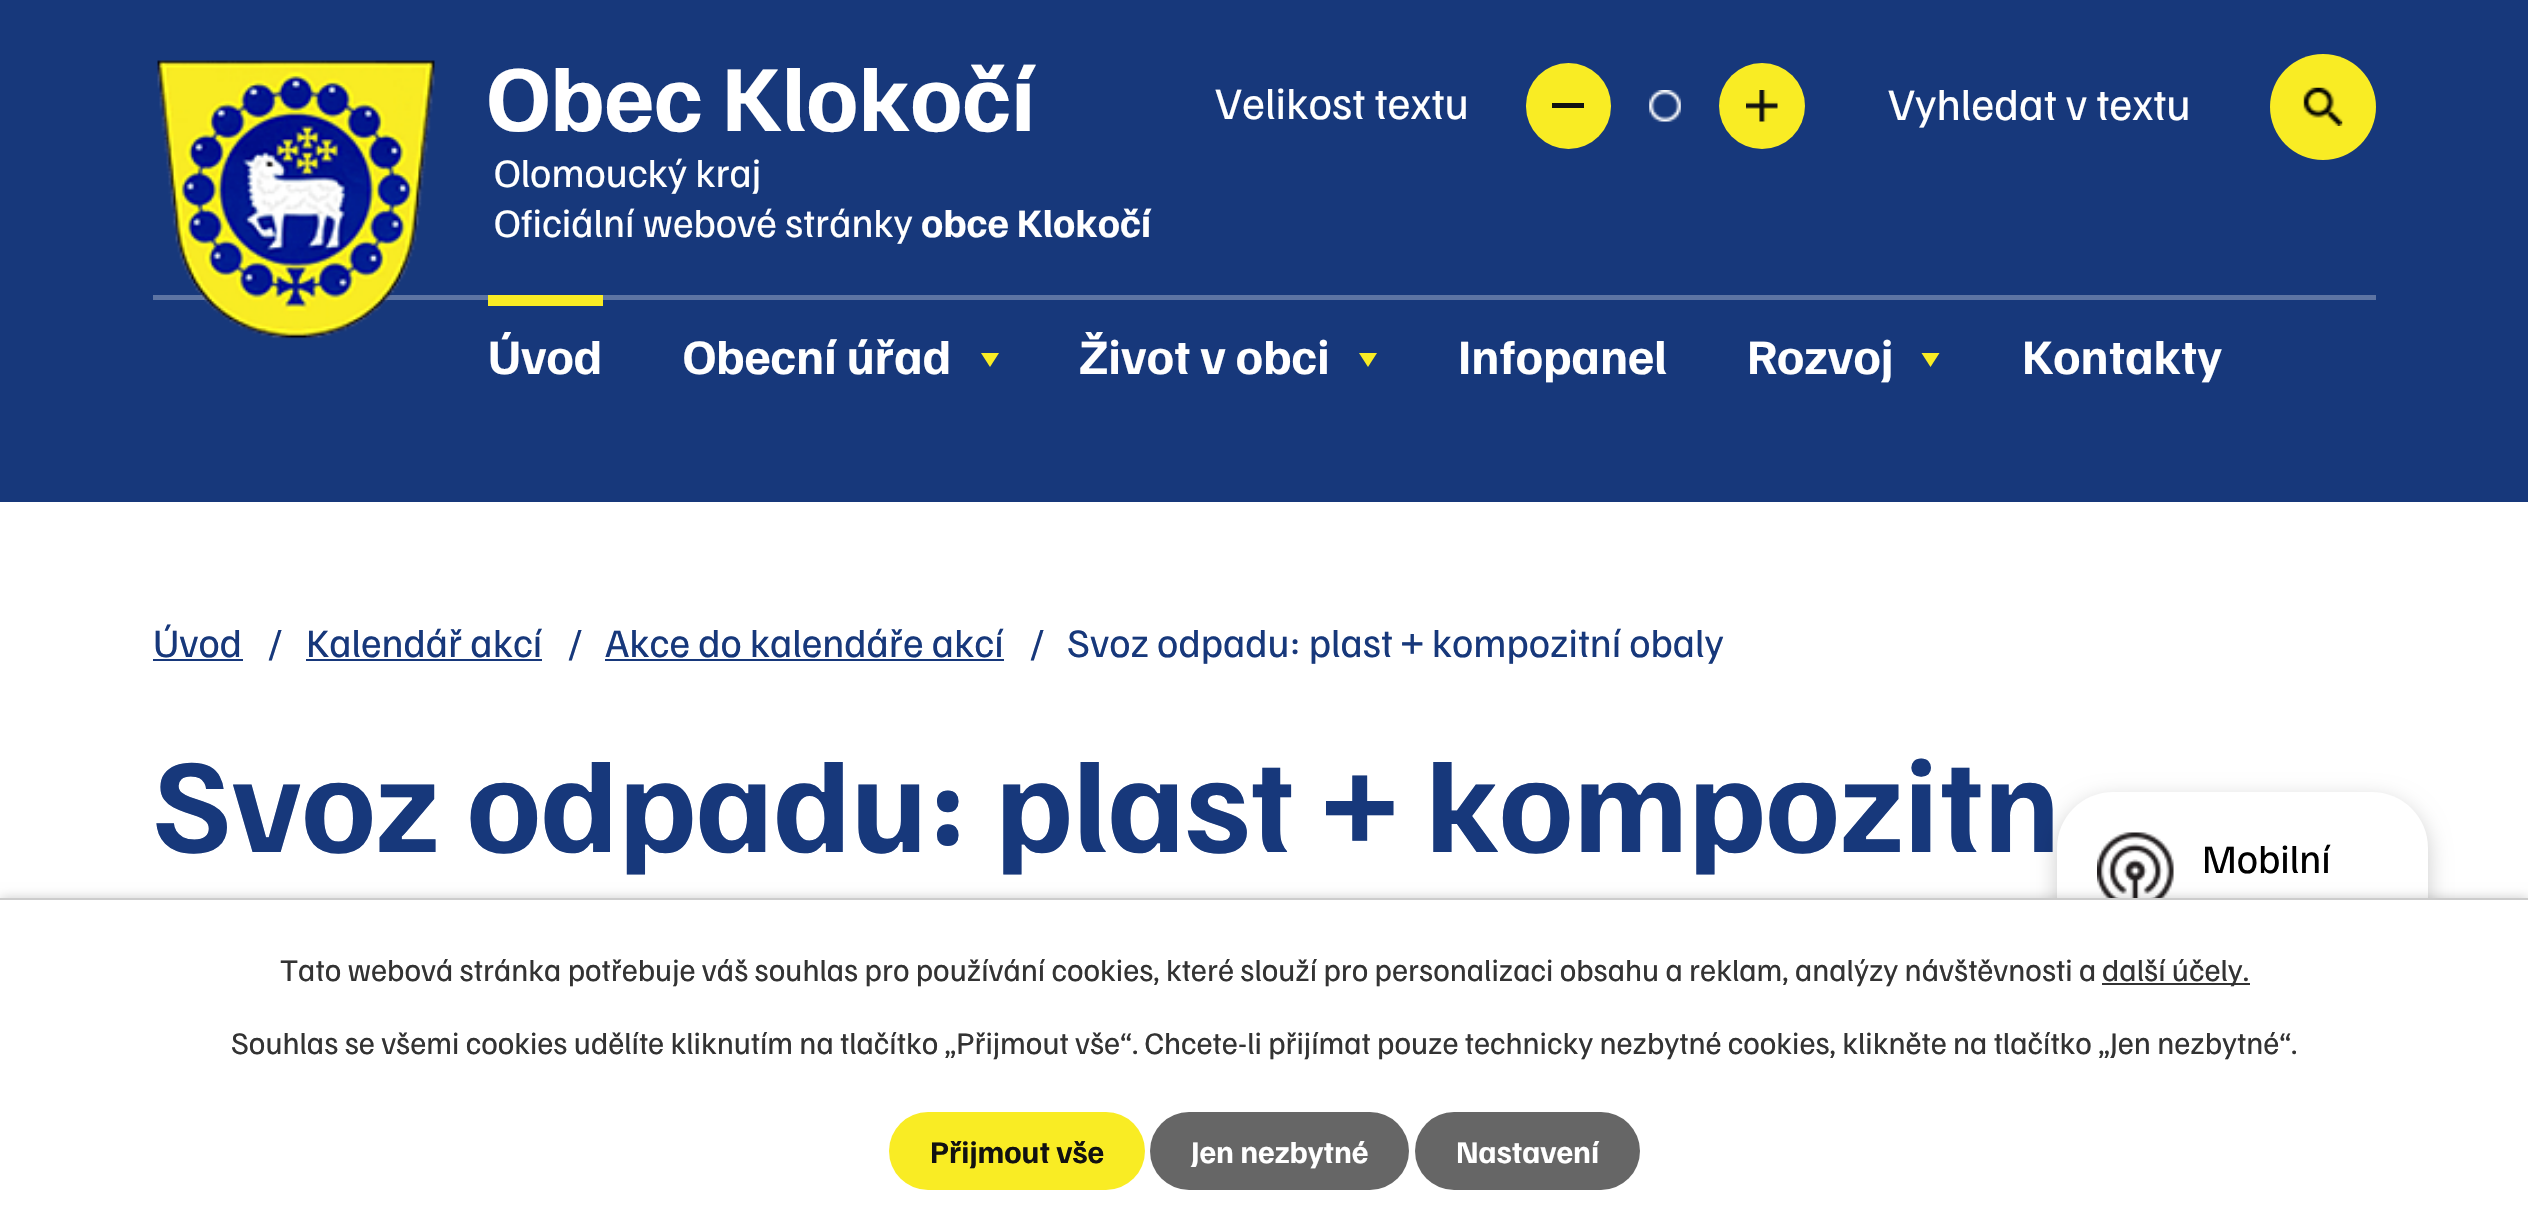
#include "include/core/SkBlurTypes.h"
#include "include/core/SkCanvas.h"
#include "include/core/SkData.h"
#include "include/core/SkFont.h"
#include "include/core/SkFontMgr.h"
#include "include/core/SkImage.h"
#include "include/core/SkMaskFilter.h"
#include "include/core/SkPaint.h"
#include "include/core/SkPathBuilder.h"
#include "include/core/SkTextBlob.h"
#include "include/effects/SkDashPathEffect.h"
#include "include/effects/SkGradientShader.h"
#include "include/utils/SkParsePath.h"

extern sk_sp<SkFontMgr> fontMgr;

static SkFont font(const char* family, int weight, float size, bool italic = false) {
    SkFontStyle style(weight, SkFontStyle::kNormal_Width,
        italic ? SkFontStyle::kItalic_Slant : SkFontStyle::kUpright_Slant);
    SkFont result(fontMgr->matchFamilyStyle(family, style), size);
    result.setSubpixel(true);
    return result;
}

static void drawLabel(SkCanvas* canvas, const char* s, float x, float y, const SkFont& font, SkColor color) {
    SkPaint ink(SkColor4f::FromColor(color));
    ink.setAntiAlias(true);
    canvas->drawString(s, x, y, font, ink);
}

static void fillRect(SkCanvas* canvas, float x, float y, float w, float h, SkColor color) {
    SkPaint ink(SkColor4f::FromColor(color));
    ink.setAntiAlias(true);
    canvas->drawRect(SkRect::MakeXYWH(x, y, w, h), ink);
}

static void fillRRect(SkCanvas* canvas, float x, float y, float w, float h, float radius, SkColor color) {
    SkPaint ink(SkColor4f::FromColor(color));
    ink.setAntiAlias(true);
    canvas->drawRoundRect(SkRect::MakeXYWH(x, y, w, h), radius, radius, ink);
}

static void drawPhoto(SkCanvas* canvas, const char* path, float x, float y, float w, float h) {
    auto image = SkImages::DeferredFromEncodedData(SkData::MakeFromFileName(path));
    canvas->drawImageRect(image, SkRect::MakeXYWH(x, y, w, h), SkSamplingOptions());
}

static SkPath parsePath(const char* data, bool evenOdd = false) {
    SkPath result = *SkParsePath::FromSVGString(data);
    if (evenOdd) result.setFillType(SkPathFillType::kEvenOdd);
    return result;
}

void draw(SkCanvas* canvas) {
    SkPaint paint;
    paint.setAntiAlias(true);
    canvas->clear(0xFFFFFFFF);
    fillRect(canvas, 0, 0, 2528, 502, 0xFF17387B);
    fillRect(canvas, 153, 295, 2223, 5, 0xFF5D74A3);
    drawPhoto(canvas, "assets/img1.png", 157, 60, 278, 279);
    SkFont font1 = font("Familjen Grotesk", 700, 94.5f);
    drawLabel(canvas, "Obec Klokočí", 487, 131, font1, 0xFFFFFFFF);
    SkFont font2 = font("Familjen Grotesk", 400, 40.5f);
    drawLabel(canvas, "Olomoucký kraj", 494, 187, font2, 0xFFFFFFFF);
    drawLabel(canvas, "Oficiální webové stránky", 494, 237, font2, 0xFFFFFFFF);
    SkFont font3 = font("Familjen Grotesk", 700, 40.5f);
    drawLabel(canvas, "obce Klokočí", 921, 237, font3, 0xFFFFFFFF);
    SkFont font4 = font("Familjen Grotesk", 400, 45);
    drawLabel(canvas, "Velikost textu", 1215, 119, font4, 0xFFFFFFFF);
    fillRRect(canvas, 1526, 63, 85, 86, 42.5f, 0xFFF9EC24);
    fillRect(canvas, 1552, 103, 32, 5, 0xFF111111);
    drawPhoto(canvas, "assets/img2.png", 1649, 90, 32, 32);
    paint.setColor(0xFFF9EC24);
    canvas->drawCircle(1762, 106, 43, paint);
    drawPhoto(canvas, "assets/img3.png", 1746, 90, 32, 32);
    drawLabel(canvas, "Vyhledat v textu", 1888, 120, font4, 0xFFFFFFFF);
    canvas->drawCircle(2323, 107, 53, paint);
    drawPhoto(canvas, "assets/img4.png", 2303, 87, 40, 39);
    fillRect(canvas, 488, 295, 115, 11, 0xFFF9EC24);
    SkFont font5 = font("Familjen Grotesk", 700, 49.5f);
    drawLabel(canvas, "Úvod", 488, 374, font5, 0xFFFFFFFF);
    drawLabel(canvas, "Obecní úřad", 683, 374, font5, 0xFFFFFFFF);
    canvas->drawPath(parsePath("M981 353H999L990 367Z"), paint);
    drawLabel(canvas, "Život v obci", 1079, 374, font5, 0xFFFFFFFF);
    canvas->drawPath(parsePath("M1359 353H1377L1368 367Z"), paint);
    drawLabel(canvas, "Infopanel", 1458, 374, font5, 0xFFFFFFFF);
    drawLabel(canvas, "Rozvoj", 1747, 374, font5, 0xFFFFFFFF);
    canvas->drawPath(parsePath("M1921.5 353H1939.5L1930.5 367Z"), paint);
    drawLabel(canvas, "Kontakty", 2022, 374, font5, 0xFFFFFFFF);
    drawLabel(canvas, "Úvod", 153, 657, font2, 0xFF17387B);
    fillRect(canvas, 153, 659, 90, 2, 0xFF17387B);
    drawLabel(canvas, "/", 268, 657, font2, 0xFF17387B);
    drawLabel(canvas, "Kalendář akcí", 306, 657, font2, 0xFF17387B);
    fillRect(canvas, 306, 659, 236, 2, 0xFF17387B);
    drawLabel(canvas, "/", 568, 657, font2, 0xFF17387B);
    drawLabel(canvas, "Akce do kalendáře akcí", 605, 657, font2, 0xFF17387B);
    fillRect(canvas, 605, 659, 399, 2, 0xFF17387B);
    drawLabel(canvas, "/", 1030, 657, font2, 0xFF17387B);
    drawLabel(canvas, "Svoz odpadu: plast + kompozitní obaly", 1067, 657, font2, 0xFF17387B);
    SkFont font6 = font("Familjen Grotesk", 700, 134.9f);
    drawLabel(canvas, "Svoz odpadu: plast + kompozitn", 153, 852, font6, 0xFF17387B);
    paint.setColor(0x33000000);
    paint.setMaskFilter(SkMaskFilter::MakeBlur(kNormal_SkBlurStyle, 11));
    canvas->drawRoundRect(SkRect::MakeXYWH(2057, 799, 371, 340), 56, 56, paint);
    paint.setMaskFilter(nullptr);
    fillRRect(canvas, 2057, 792, 371, 340, 56, 0xFFFFFFFF);
    drawPhoto(canvas, "assets/img5.png", 2097, 832, 77, 66);
    drawLabel(canvas, "Mobilní", 2202, 873, font2, 0xFF000000);
    paint.setMaskFilter(SkMaskFilter::MakeBlur(kNormal_SkBlurStyle, 5.5f));
    canvas->drawRect(SkRect::MakeXYWH(0, 898, 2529, 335), paint);
    paint.setMaskFilter(nullptr);
    fillRect(canvas, 0, 900, 2528, 331, 0xFFFFFFFF);
    fillRect(canvas, 0, 898, 2528, 2, 0xFFCCCCCC);
    SkFont font7 = font("Familjen Grotesk", 400, 31.5f);
    drawLabel(canvas, "Tato webová stránka potřebuje váš souhlas pro používání cookies, které slouží pro personalizaci obsahu a reklam, analýzy návštěvnosti a", 280, 981, font7, 0xFF333333);
    fillRect(canvas, 2102, 983, 148, 2, 0xFF333333);
    drawLabel(canvas, "další účely.", 2102, 981, font7, 0xFF333333);
    drawLabel(canvas, "Souhlas se všemi cookies udělíte kliknutím na tlačítko „Přijmout vše“. Chcete-li přijímat pouze technicky nezbytné cookies, klikněte na tlačítko „Jen nezbytné“.", 231, 1054, font7, 0xFF333333);
    fillRRect(canvas, 889, 1112, 256, 78, 39, 0xFFF9EC24);
    SkFont font8 = font("Familjen Grotesk", 700, 31.5f);
    drawLabel(canvas, "Přijmout vše", 930, 1163, font8, 0xFF111111);
    fillRRect(canvas, 1150, 1112, 259, 78, 39, 0xFF666666);
    drawLabel(canvas, "Jen nezbytné", 1191, 1163, font8, 0xFFFFFFFF);
    fillRRect(canvas, 1415, 1112, 225, 78, 39, 0xFF666666);
    drawLabel(canvas, "Nastavení", 1456, 1163, font8, 0xFFFFFFFF);
}
